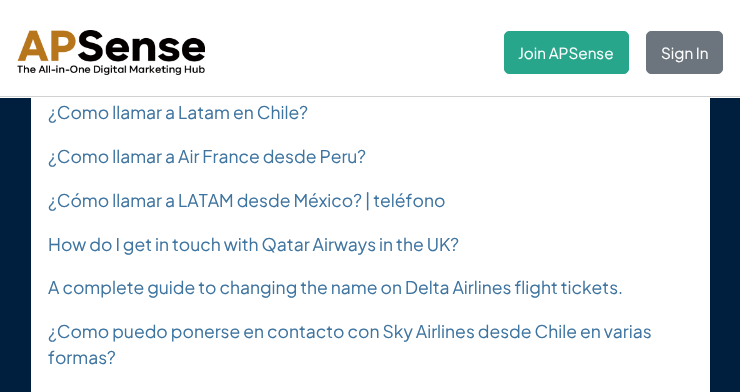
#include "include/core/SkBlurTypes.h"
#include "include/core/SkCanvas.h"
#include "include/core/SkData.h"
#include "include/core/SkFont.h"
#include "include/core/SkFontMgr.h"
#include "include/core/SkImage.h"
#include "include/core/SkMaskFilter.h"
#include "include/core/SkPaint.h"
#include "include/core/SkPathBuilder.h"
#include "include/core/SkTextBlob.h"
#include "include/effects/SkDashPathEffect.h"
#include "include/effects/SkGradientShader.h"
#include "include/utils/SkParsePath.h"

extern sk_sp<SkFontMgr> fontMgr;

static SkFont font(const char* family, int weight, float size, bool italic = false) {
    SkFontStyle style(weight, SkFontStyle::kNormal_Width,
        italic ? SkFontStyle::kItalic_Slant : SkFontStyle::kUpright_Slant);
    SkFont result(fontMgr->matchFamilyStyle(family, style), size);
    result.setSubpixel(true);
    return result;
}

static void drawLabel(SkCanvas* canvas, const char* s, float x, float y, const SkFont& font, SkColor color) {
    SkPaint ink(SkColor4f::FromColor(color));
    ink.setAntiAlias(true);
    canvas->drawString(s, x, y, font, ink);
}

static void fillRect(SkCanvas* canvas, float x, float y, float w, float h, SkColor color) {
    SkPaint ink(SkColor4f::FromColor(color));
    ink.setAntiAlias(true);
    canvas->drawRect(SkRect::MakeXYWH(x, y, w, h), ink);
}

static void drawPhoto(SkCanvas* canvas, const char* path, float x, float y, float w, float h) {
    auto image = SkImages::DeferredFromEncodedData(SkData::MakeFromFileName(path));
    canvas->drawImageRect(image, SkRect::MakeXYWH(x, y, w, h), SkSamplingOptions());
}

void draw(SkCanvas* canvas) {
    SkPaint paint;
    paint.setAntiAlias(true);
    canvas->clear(0xFF001F3F);
    fillRect(canvas, 0, 0, 740, 98, 0xFFFFFFFF);
    fillRect(canvas, 0, 96, 740, 1, 0xFFD1D1D1);
    drawPhoto(canvas, "assets/img1.png", 17, 30, 188, 45);
    paint.setColor(0xFF27A68C);
    canvas->drawRoundRect(SkRect::MakeXYWH(504.5f, 31.5f, 124, 42), 4.5f, 4.5f, paint);
    paint.setStroke(true);
    paint.setStrokeWidth(1);
    canvas->drawRoundRect(SkRect::MakeXYWH(504.5f, 31.5f, 124, 42), 4.5f, 4.5f, paint);
    SkFont font1 = font("Plus Jakarta Sans", 400, 15.25f);
    drawLabel(canvas, "Join APSense", 518, 59, font1, 0xFFFFFFFF);
    paint.setStroke(false);
    paint.setColor(0xFF6C757D);
    canvas->drawRoundRect(SkRect::MakeXYWH(646.5f, 31.5f, 76, 42), 4.5f, 4.5f, paint);
    paint.setStroke(true);
    canvas->drawRoundRect(SkRect::MakeXYWH(646.5f, 31.5f, 76, 42), 4.5f, 4.5f, paint);
    drawLabel(canvas, "Sign In", 661, 59, font1, 0xFFFFFFFF);
    fillRect(canvas, 31, 98, 679, 294, 0xFFFFFFFF);
    SkFont font2 = font("Plus Jakarta Sans", 400, 17.5f);
    drawLabel(canvas, "¿Como llamar a Latam en Chile?", 48, 119, font2, 0xFF3E74A0);
    drawLabel(canvas, "¿Como llamar a Air France desde Peru?", 48, 163, font2, 0xFF3E74A0);
    drawLabel(canvas, "¿Cómo llamar a LATAM desde México? | teléfono", 48, 207, font2, 0xFF3E74A0);
    drawLabel(canvas, "How do I get in touch with Qatar Airways in the UK?", 48, 251, font2, 0xFF3E74A0);
    drawLabel(canvas, "A complete guide to changing the name on Delta Airlines flight tickets.", 48, 294, font2, 0xFF3E74A0);
    drawLabel(canvas, "¿Como puedo ponerse en contacto con Sky Airlines desde Chile en varias", 48, 338, font2, 0xFF3E74A0);
    drawLabel(canvas, "formas?", 48, 364, font2, 0xFF3E74A0);
}
